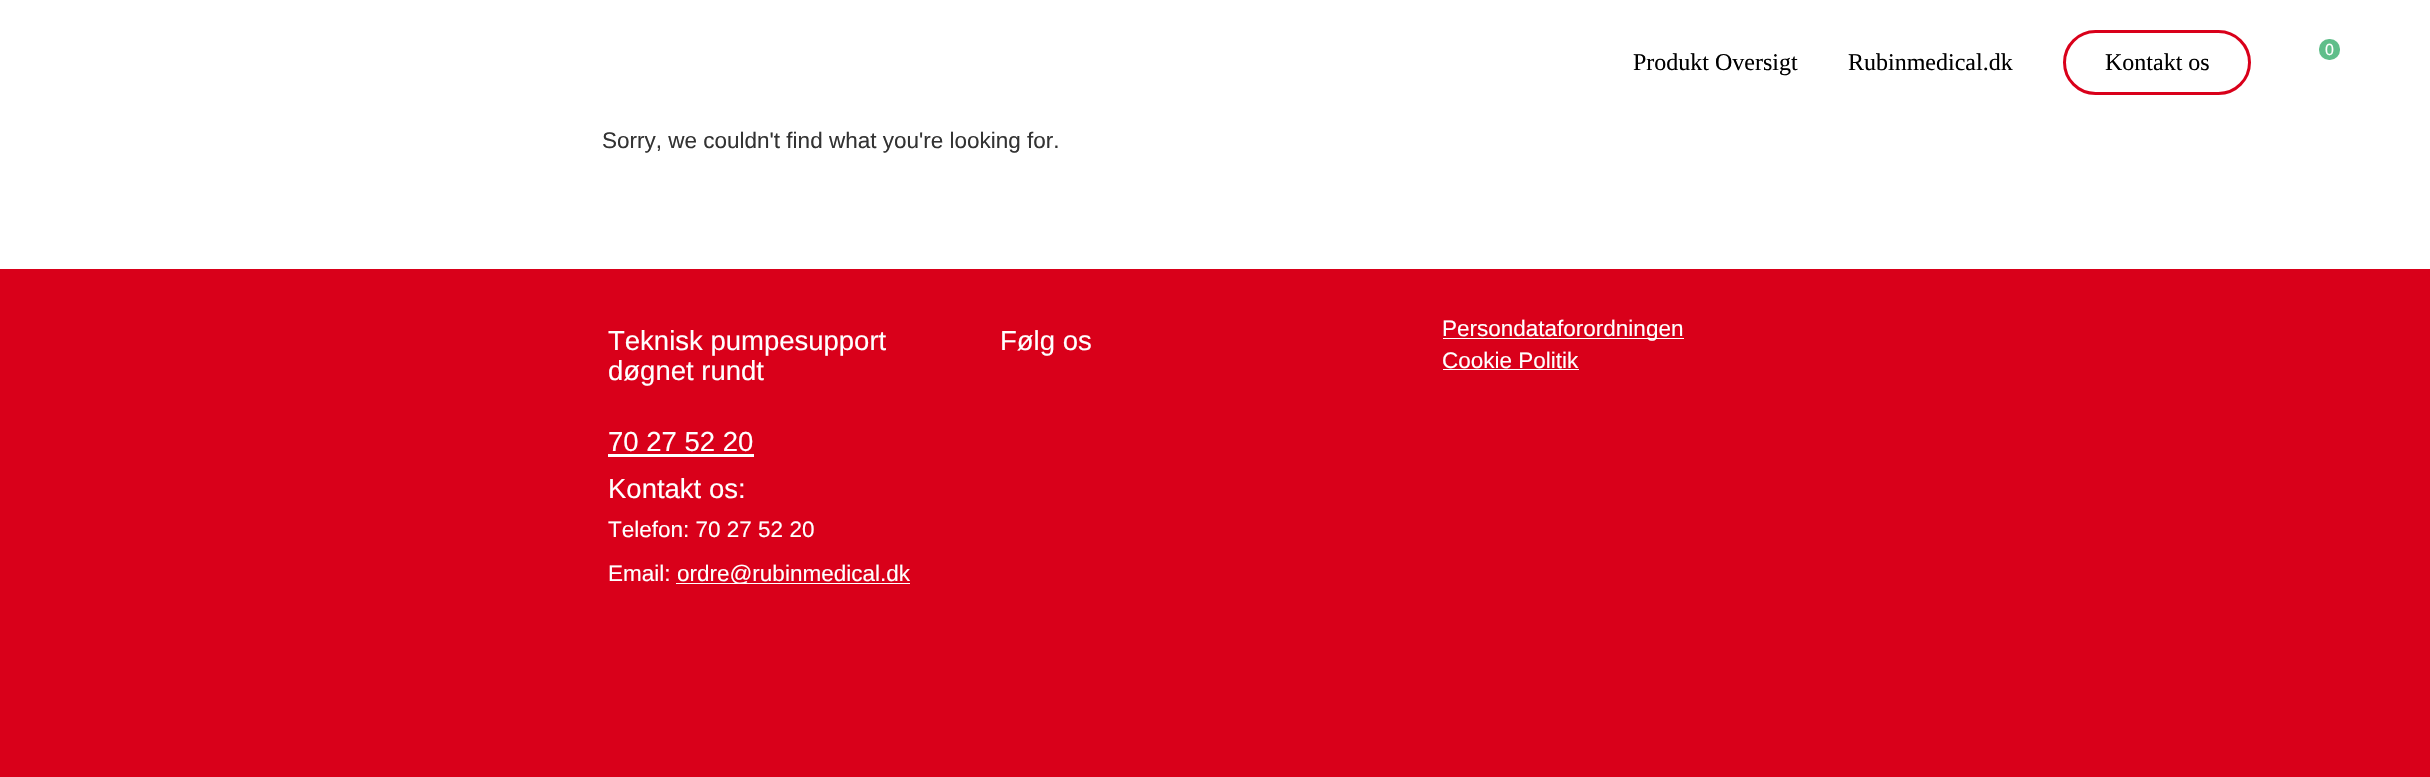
#include "include/core/SkBlurTypes.h"
#include "include/core/SkCanvas.h"
#include "include/core/SkData.h"
#include "include/core/SkFont.h"
#include "include/core/SkFontMgr.h"
#include "include/core/SkImage.h"
#include "include/core/SkMaskFilter.h"
#include "include/core/SkPaint.h"
#include "include/core/SkPathBuilder.h"
#include "include/core/SkTextBlob.h"
#include "include/effects/SkDashPathEffect.h"
#include "include/effects/SkGradientShader.h"
#include "include/utils/SkParsePath.h"

extern sk_sp<SkFontMgr> fontMgr;

static SkFont font(const char* family, int weight, float size, bool italic = false) {
    SkFontStyle style(weight, SkFontStyle::kNormal_Width,
        italic ? SkFontStyle::kItalic_Slant : SkFontStyle::kUpright_Slant);
    SkFont result(fontMgr->matchFamilyStyle(family, style), size);
    result.setSubpixel(true);
    return result;
}

static void drawLabel(SkCanvas* canvas, const char* s, float x, float y, const SkFont& font, SkColor color) {
    SkPaint ink(SkColor4f::FromColor(color));
    ink.setAntiAlias(true);
    canvas->drawString(s, x, y, font, ink);
}

static void fillRect(SkCanvas* canvas, float x, float y, float w, float h, SkColor color) {
    SkPaint ink(SkColor4f::FromColor(color));
    ink.setAntiAlias(true);
    canvas->drawRect(SkRect::MakeXYWH(x, y, w, h), ink);
}

static void fillRRect(SkCanvas* canvas, float x, float y, float w, float h, float radius, SkColor color) {
    SkPaint ink(SkColor4f::FromColor(color));
    ink.setAntiAlias(true);
    canvas->drawRoundRect(SkRect::MakeXYWH(x, y, w, h), radius, radius, ink);
}

void draw(SkCanvas* canvas) {
    SkPaint paint;
    paint.setAntiAlias(true);
    canvas->clear(0xFFFFFFFF);
    fillRRect(canvas, 2319, 39, 21, 21, 10, 0xFF5FBE8A);
    SkFont font1 = font("Liberation Sans", 400, 16);
    drawLabel(canvas, "0", 2325, 55, font1, 0xFFFFFFFF);
    SkFont font2 = font("Liberation Serif", 400, 24);
    drawLabel(canvas, "Produkt Oversigt", 1633, 70, font2, 0xFF000000);
    drawLabel(canvas, "Rubinmedical.dk", 1848, 70, font2, 0xFF000000);
    paint.setStroke(true);
    paint.setStrokeWidth(3);
    paint.setColor(0xFFD9001A);
    canvas->drawRoundRect(SkRect::MakeXYWH(2064.5f, 31.5f, 185, 62), 31, 31, paint);
    drawLabel(canvas, "Kontakt os", 2105, 70, font2, 0xFF000000);
    SkFont font3 = font("Liberation Sans", 400, 22.5f);
    drawLabel(canvas, "Sorry, we couldn't find what you're looking for.", 602, 148, font3, 0xFF333333);
    fillRect(canvas, 0, 269, 2430, 508, 0xFFD9001A);
    SkFont font4 = font("Liberation Sans", 400, 27.5f);
    drawLabel(canvas, "Teknisk pumpesupport", 608, 350, font4, 0xFFFFFFFF);
    drawLabel(canvas, "døgnet rundt", 608, 380, font4, 0xFFFFFFFF);
    drawLabel(canvas, "70 27 52 20", 608, 451, font4, 0xFFFFFFFF);
    fillRect(canvas, 608, 454, 146, 3, 0xFFFFFFFF);
    drawLabel(canvas, "Kontakt os:", 608, 498, font4, 0xFFFFFFFF);
    drawLabel(canvas, "Telefon: 70 27 52 20", 608, 537, font3, 0xFFFFFFFF);
    drawLabel(canvas, "Email:", 608, 581, font3, 0xFFFFFFFF);
    fillRect(canvas, 676, 583, 234, 1, 0xFFFFFFFF);
    drawLabel(canvas, "ordre@rubinmedical.dk", 677, 581, font3, 0xFFFFFFFF);
    drawLabel(canvas, "Følg os", 1000, 350, font4, 0xFFFFFFFF);
    fillRect(canvas, 1443, 338, 241, 1, 0xFFFFFFFF);
    drawLabel(canvas, "Persondataforordningen", 1442, 336, font3, 0xFFFFFFFF);
    drawLabel(canvas, "Cookie Politik", 1442, 368, font3, 0xFFFFFFFF);
    fillRect(canvas, 1443, 369, 136, 1, 0xFFFFFFFF);
}
